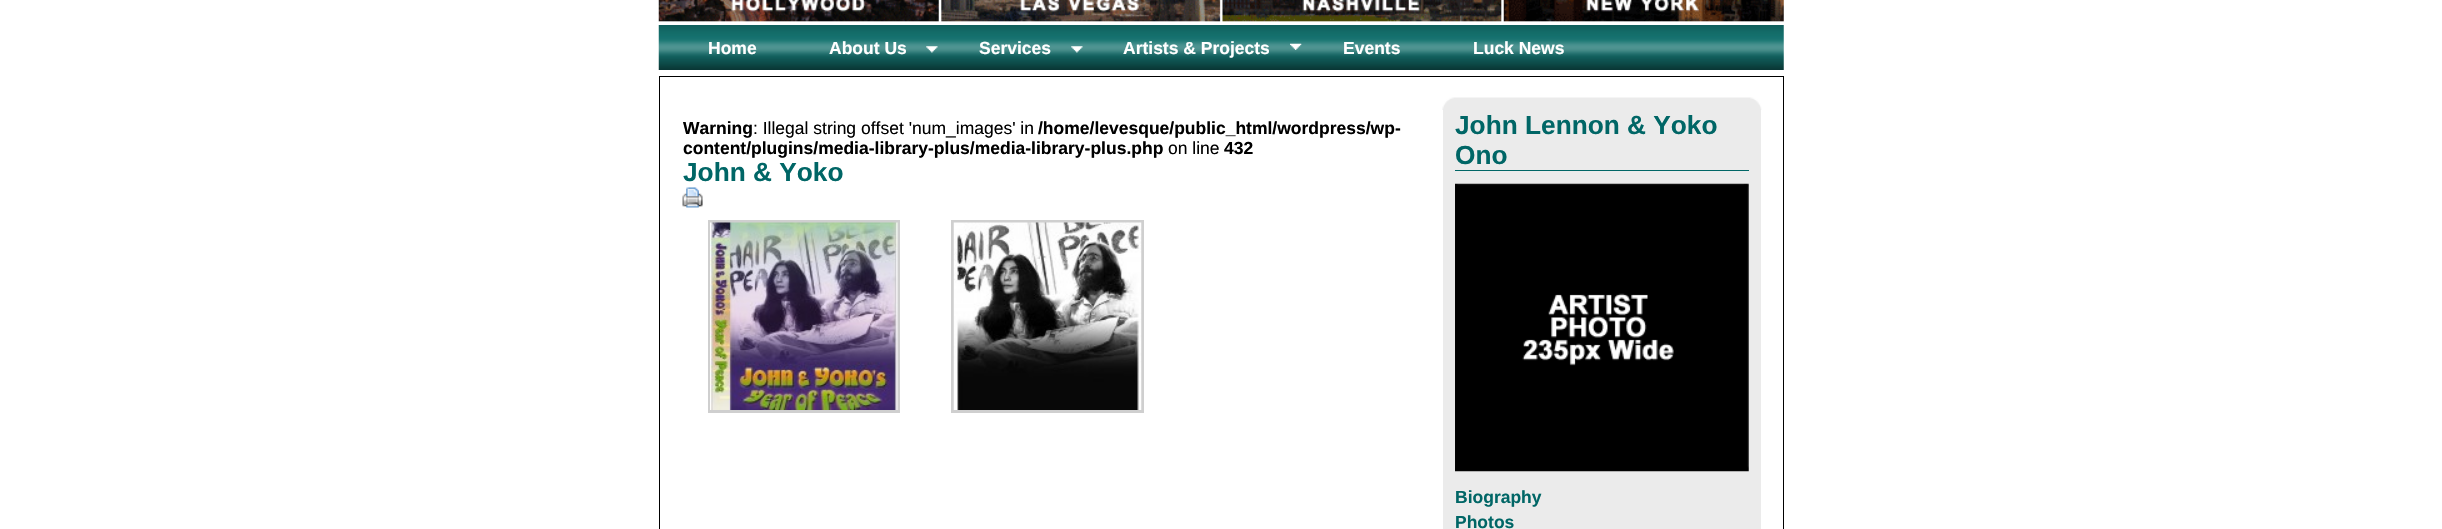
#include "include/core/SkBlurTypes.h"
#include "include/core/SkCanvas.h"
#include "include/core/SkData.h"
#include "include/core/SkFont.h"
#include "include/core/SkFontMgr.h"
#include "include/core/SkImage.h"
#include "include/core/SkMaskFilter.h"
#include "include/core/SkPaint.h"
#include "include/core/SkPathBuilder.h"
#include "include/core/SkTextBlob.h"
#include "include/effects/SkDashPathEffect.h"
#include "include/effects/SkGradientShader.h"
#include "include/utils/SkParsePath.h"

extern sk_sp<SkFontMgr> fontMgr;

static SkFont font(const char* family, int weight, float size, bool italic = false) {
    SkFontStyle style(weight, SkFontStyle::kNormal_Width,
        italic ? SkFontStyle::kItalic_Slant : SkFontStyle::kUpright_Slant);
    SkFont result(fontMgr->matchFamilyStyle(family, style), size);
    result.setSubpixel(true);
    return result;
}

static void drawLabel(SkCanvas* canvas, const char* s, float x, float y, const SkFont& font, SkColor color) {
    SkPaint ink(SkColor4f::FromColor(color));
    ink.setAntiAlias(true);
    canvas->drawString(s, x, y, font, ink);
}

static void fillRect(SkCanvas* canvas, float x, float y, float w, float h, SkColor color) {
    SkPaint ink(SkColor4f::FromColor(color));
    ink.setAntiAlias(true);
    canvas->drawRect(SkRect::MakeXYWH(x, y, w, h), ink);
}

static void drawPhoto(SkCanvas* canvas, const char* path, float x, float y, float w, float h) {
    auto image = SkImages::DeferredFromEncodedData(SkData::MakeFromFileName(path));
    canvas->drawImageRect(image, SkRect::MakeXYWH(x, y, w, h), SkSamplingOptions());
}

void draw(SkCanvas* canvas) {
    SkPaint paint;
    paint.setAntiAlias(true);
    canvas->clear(0xFFFFFFFF);
    drawPhoto(canvas, "assets/img1.png", 658, 0, 1126, 22);
    drawPhoto(canvas, "assets/img2.png", 658, 25, 1126, 45);
    SkFont font1 = font("Liberation Sans", 700, 17.5f);
    drawLabel(canvas, "Home", 708, 54, font1, 0xFFFFFFFF);
    drawPhoto(canvas, "assets/img3.png", 926, 46, 12, 7);
    drawLabel(canvas, "About Us", 829, 54, font1, 0xFFFFFFFF);
    drawPhoto(canvas, "assets/img3.png", 1071, 46, 12, 7);
    drawLabel(canvas, "Services", 979, 54, font1, 0xFFFFFFFF);
    drawPhoto(canvas, "assets/img4.png", 1290, 43, 12, 7);
    drawLabel(canvas, "Artists & Projects", 1123, 54, font1, 0xFFFFFFFF);
    drawLabel(canvas, "Events", 1343, 54, font1, 0xFFFFFFFF);
    drawLabel(canvas, "Luck News", 1473, 54, font1, 0xFFFFFFFF);
    paint.setStroke(true);
    paint.setStrokeWidth(1);
    paint.setColor(0xFF000000);
    canvas->drawRect(SkRect::MakeXYWH(659.5f, 76.5f, 1124, 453), paint);
    drawLabel(canvas, "Warning", 683, 134, font1, 0xFF000000);
    SkFont font2 = font("Liberation Sans", 400, 17.5f);
    drawLabel(canvas, ": Illegal string offset 'num_images' in", 753, 134, font2, 0xFF000000);
    drawLabel(canvas, "/home/levesque/public_html/wordpress/wp-", 1038, 134, font1, 0xFF000000);
    drawLabel(canvas, "content/plugins/media-library-plus/media-library-plus.php", 683, 154, font1, 0xFF000000);
    drawLabel(canvas, "on line", 1168, 154, font2, 0xFF000000);
    drawLabel(canvas, "432", 1224, 154, font1, 0xFF000000);
    SkFont font3 = font("Liberation Sans", 700, 26.25f);
    drawLabel(canvas, "John & Yoko", 683, 181, font3, 0xFF006666);
    drawPhoto(canvas, "assets/img5.png", 682, 187, 21, 21);
    paint.setStrokeWidth(3);
    paint.setColor(0xFFCFCFCF);
    canvas->drawRect(SkRect::MakeXYWH(709.5f, 221.5f, 189, 190), paint);
    drawPhoto(canvas, "assets/img6.png", 710, 222, 188, 188);
    canvas->drawRect(SkRect::MakeXYWH(952.5f, 221.5f, 190, 190), paint);
    drawPhoto(canvas, "assets/img7.png", 953, 222, 189, 188);
    fillRect(canvas, 1443, 110, 318, 419, 0xFFEBEBEB);
    drawPhoto(canvas, "assets/img8.png", 1442, 97, 320, 13);
    fillRect(canvas, 1455, 170, 294, 1, 0xFF006666);
    drawLabel(canvas, "John Lennon & Yoko", 1455, 134, font3, 0xFF006666);
    drawLabel(canvas, "Ono", 1455, 164, font3, 0xFF006666);
    drawPhoto(canvas, "assets/img9.png", 1455, 183, 294, 289);
    drawLabel(canvas, "Biography", 1455, 503, font1, 0xFF006666);
    drawLabel(canvas, "Photos", 1455, 528, font1, 0xFF006666);
}
